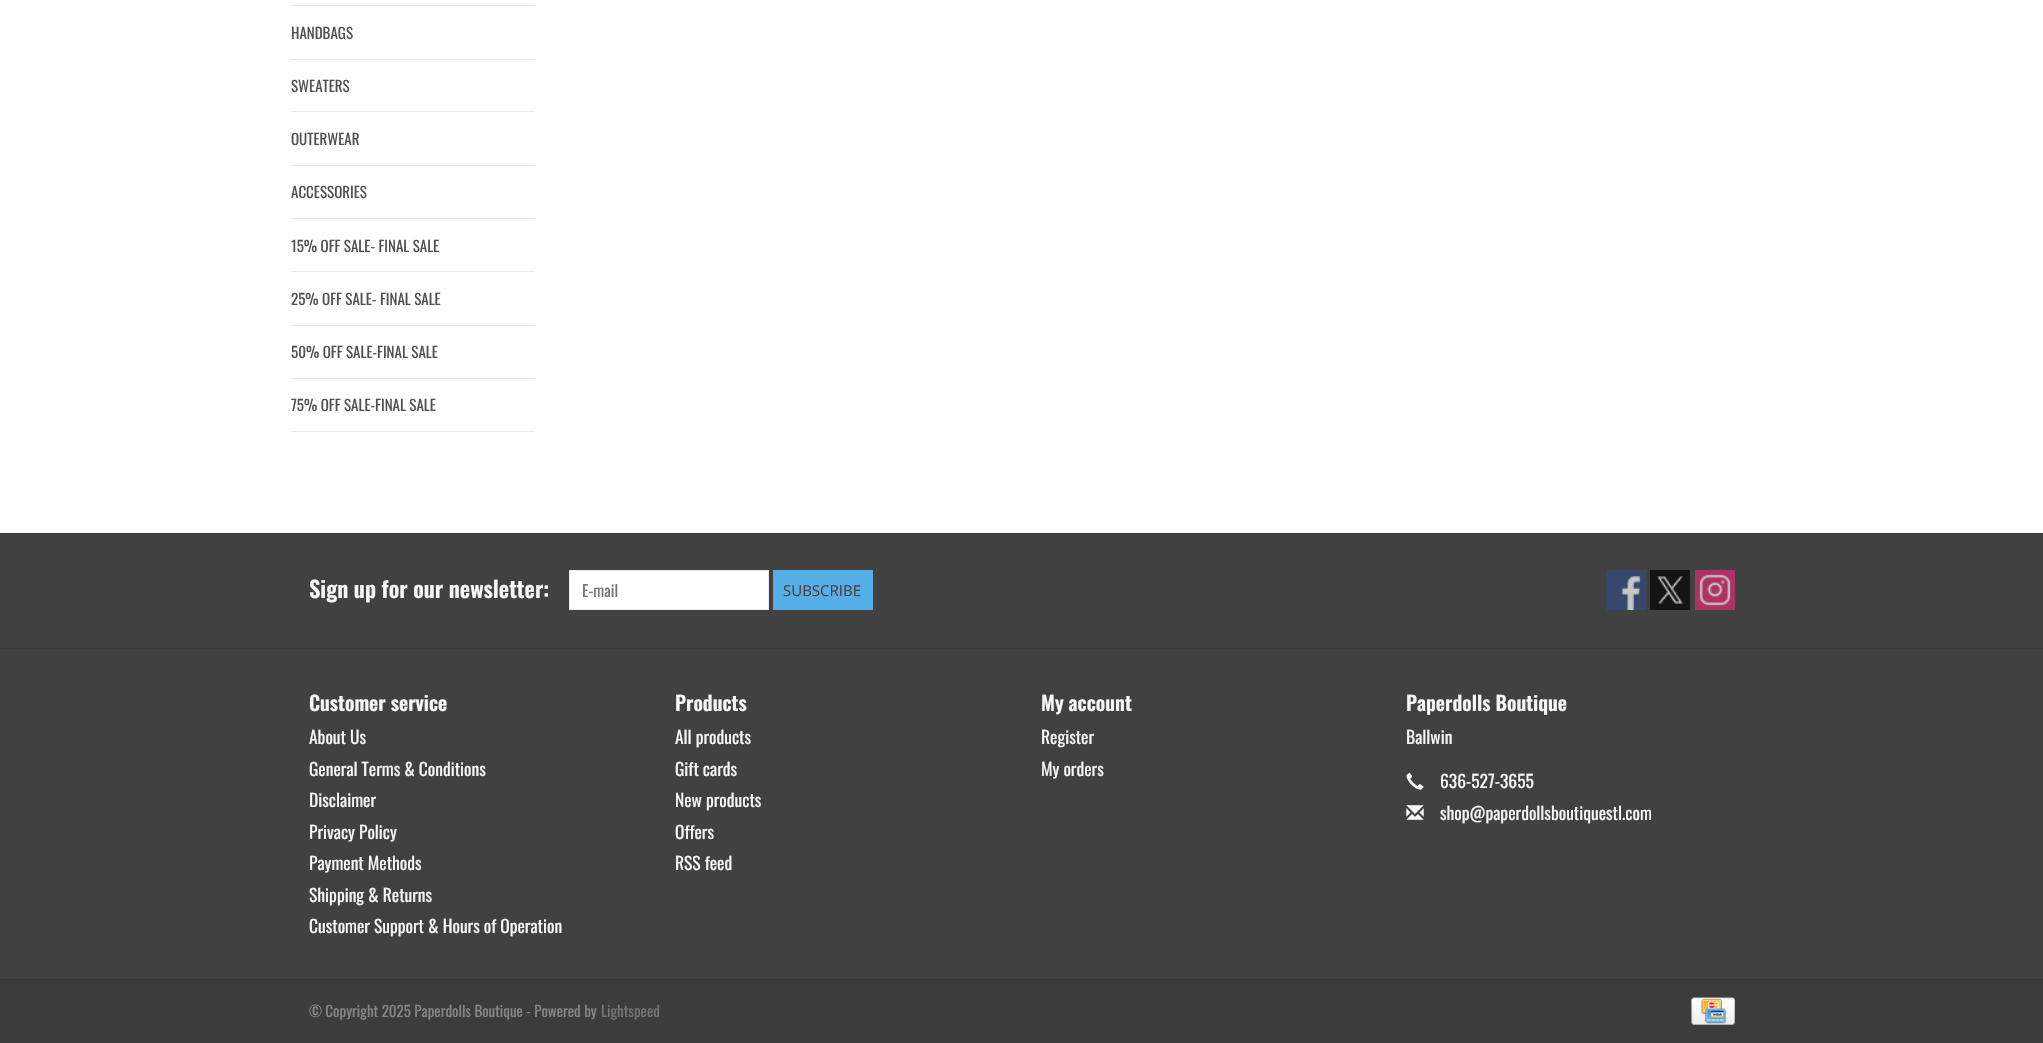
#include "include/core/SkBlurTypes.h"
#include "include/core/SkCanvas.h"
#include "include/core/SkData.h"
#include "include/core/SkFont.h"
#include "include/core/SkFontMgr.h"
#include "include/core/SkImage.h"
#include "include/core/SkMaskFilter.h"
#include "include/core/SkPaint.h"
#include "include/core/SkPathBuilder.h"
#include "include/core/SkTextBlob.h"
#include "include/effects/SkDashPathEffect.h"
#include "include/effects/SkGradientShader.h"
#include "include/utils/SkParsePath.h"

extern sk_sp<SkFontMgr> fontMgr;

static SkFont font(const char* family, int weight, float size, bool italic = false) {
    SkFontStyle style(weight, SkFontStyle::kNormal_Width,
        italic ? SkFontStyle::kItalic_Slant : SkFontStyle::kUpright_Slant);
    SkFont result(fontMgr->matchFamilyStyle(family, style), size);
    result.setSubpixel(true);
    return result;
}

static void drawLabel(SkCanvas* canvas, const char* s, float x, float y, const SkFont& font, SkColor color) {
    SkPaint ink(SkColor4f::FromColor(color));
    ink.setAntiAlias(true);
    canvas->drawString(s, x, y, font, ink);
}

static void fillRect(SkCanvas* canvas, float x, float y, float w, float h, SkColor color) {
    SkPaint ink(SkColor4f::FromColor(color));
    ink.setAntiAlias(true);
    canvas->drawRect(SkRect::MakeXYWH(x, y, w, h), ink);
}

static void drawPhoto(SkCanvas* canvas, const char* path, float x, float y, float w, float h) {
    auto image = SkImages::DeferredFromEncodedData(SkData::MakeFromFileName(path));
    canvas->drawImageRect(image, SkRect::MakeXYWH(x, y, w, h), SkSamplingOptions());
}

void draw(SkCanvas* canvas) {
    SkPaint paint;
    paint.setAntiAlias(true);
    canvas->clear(0xFFFFFFFF);
    fillRect(canvas, 291, 5, 244, 1, 0xFFEAEAEA);
    fillRect(canvas, 291, 59, 244, 1, 0xFFEAEAEA);
    SkFont font1 = font("Oswald", 400, 15);
    drawLabel(canvas, "HANDBAGS", 291, 39, font1, 0xFF505050);
    fillRect(canvas, 291, 111, 244, 1, 0xFFEAEAEA);
    drawLabel(canvas, "SWEATERS", 291, 92, font1, 0xFF505050);
    fillRect(canvas, 291, 165, 244, 1, 0xFFEAEAEA);
    drawLabel(canvas, "OUTERWEAR", 291, 145, font1, 0xFF505050);
    fillRect(canvas, 291, 218, 244, 1, 0xFFEAEAEA);
    drawLabel(canvas, "ACCESSORIES", 291, 198, font1, 0xFF505050);
    fillRect(canvas, 291, 271, 244, 1, 0xFFEAEAEA);
    drawLabel(canvas, "15% OFF SALE- FINAL SALE", 291, 252, font1, 0xFF505050);
    fillRect(canvas, 291, 325, 244, 1, 0xFFEAEAEA);
    drawLabel(canvas, "25% OFF SALE- FINAL SALE", 291, 305, font1, 0xFF505050);
    fillRect(canvas, 291, 378, 244, 1, 0xFFEAEAEA);
    drawLabel(canvas, "50% OFF SALE-FINAL SALE", 291, 358, font1, 0xFF505050);
    fillRect(canvas, 291, 431, 244, 1, 0xFFEAEAEA);
    drawLabel(canvas, "75% OFF SALE-FINAL SALE", 291, 411, font1, 0xFF505050);
    fillRect(canvas, 0, 534, 2043, 445, 0xFF414141);
    fillRect(canvas, 0, 533, 2043, 1, 0xFF3B3B3B);
    SkFont font2 = font("Oswald", 600, 22.5f);
    drawLabel(canvas, "Sign up for our newsletter:", 309, 598, font2, 0xFFF7F7F7);
    paint.setColor(0xFFFFFFFF);
    canvas->drawRect(SkRect::MakeXYWH(569.5f, 570.5f, 199, 39), paint);
    paint.setStroke(true);
    paint.setStrokeWidth(1);
    paint.setColor(0xFFE9E9E9);
    canvas->drawRect(SkRect::MakeXYWH(569.5f, 570.5f, 199, 39), paint);
    SkFont font3 = font("Oswald", 400, 16);
    drawLabel(canvas, "E-mail", 582, 597, font3, 0xFF757575);
    fillRect(canvas, 773, 570, 100, 40, 0xFF54AFE9);
    SkFont font4 = font("Open Sans", 400, 15);
    drawLabel(canvas, "SUBSCRIBE", 783, 596, font4, 0xFF503B3B);
    drawPhoto(canvas, "assets/img1.png", 1606, 570, 41, 40);
    drawPhoto(canvas, "assets/img2.png", 1650, 570, 40, 40);
    drawPhoto(canvas, "assets/img3.png", 1695, 570, 40, 40);
    fillRect(canvas, 0, 648, 2043, 1, 0xFF3B3B3B);
    SkFont font5 = font("Oswald", 600, 20);
    drawLabel(canvas, "Customer service", 309, 711, font5, 0xFFF7F7F7);
    SkFont font6 = font("Oswald", 400, 17.5f);
    drawLabel(canvas, "About Us", 309, 744, font6, 0xFFF7F7F7);
    drawLabel(canvas, "General Terms & Conditions", 309, 776, font6, 0xFFF7F7F7);
    drawLabel(canvas, "Disclaimer", 309, 807, font6, 0xFFF7F7F7);
    drawLabel(canvas, "Privacy Policy", 309, 839, font6, 0xFFF7F7F7);
    drawLabel(canvas, "Payment Methods", 309, 870, font6, 0xFFF7F7F7);
    drawLabel(canvas, "Shipping & Returns", 309, 902, font6, 0xFFF7F7F7);
    drawLabel(canvas, "Customer Support & Hours of Operation", 309, 933, font6, 0xFFF7F7F7);
    drawLabel(canvas, "Products", 675, 711, font5, 0xFFF7F7F7);
    drawLabel(canvas, "All products", 675, 744, font6, 0xFFF7F7F7);
    drawLabel(canvas, "Gift cards", 675, 776, font6, 0xFFF7F7F7);
    drawLabel(canvas, "New products", 675, 807, font6, 0xFFF7F7F7);
    drawLabel(canvas, "Offers", 675, 839, font6, 0xFFF7F7F7);
    drawLabel(canvas, "RSS feed", 675, 870, font6, 0xFFF7F7F7);
    drawLabel(canvas, "My account", 1041, 711, font5, 0xFFF7F7F7);
    drawLabel(canvas, "Register", 1041, 744, font6, 0xFFF7F7F7);
    drawLabel(canvas, "My orders", 1041, 776, font6, 0xFFF7F7F7);
    drawLabel(canvas, "Paperdolls Boutique", 1406, 711, font5, 0xFFF7F7F7);
    drawLabel(canvas, "Ballwin", 1406, 744, font6, 0xFFF7F7F7);
    drawPhoto(canvas, "assets/img4.png", 1406, 772, 18, 18);
    drawLabel(canvas, "636-527-3655", 1440, 788, font6, 0xFFF7F7F7);
    drawPhoto(canvas, "assets/img5.png", 1406, 805, 18, 15);
    drawLabel(canvas, "shop@paperdollsboutiquestl.com", 1440, 820, font6, 0xFFF7F7F7);
    fillRect(canvas, 0, 979, 2043, 1, 0xFF373737);
    fillRect(canvas, 0, 980, 2043, 63, 0xFF3C3C3C);
    drawLabel(canvas, "© Copyright 2025 Paperdolls Boutique - Powered by", 309, 1017, font1, 0xFF878787);
    drawLabel(canvas, "Lightspeed", 601, 1017, font1, 0xFF757575);
    drawPhoto(canvas, "assets/img6.png", 1691, 997, 44, 28);
}
